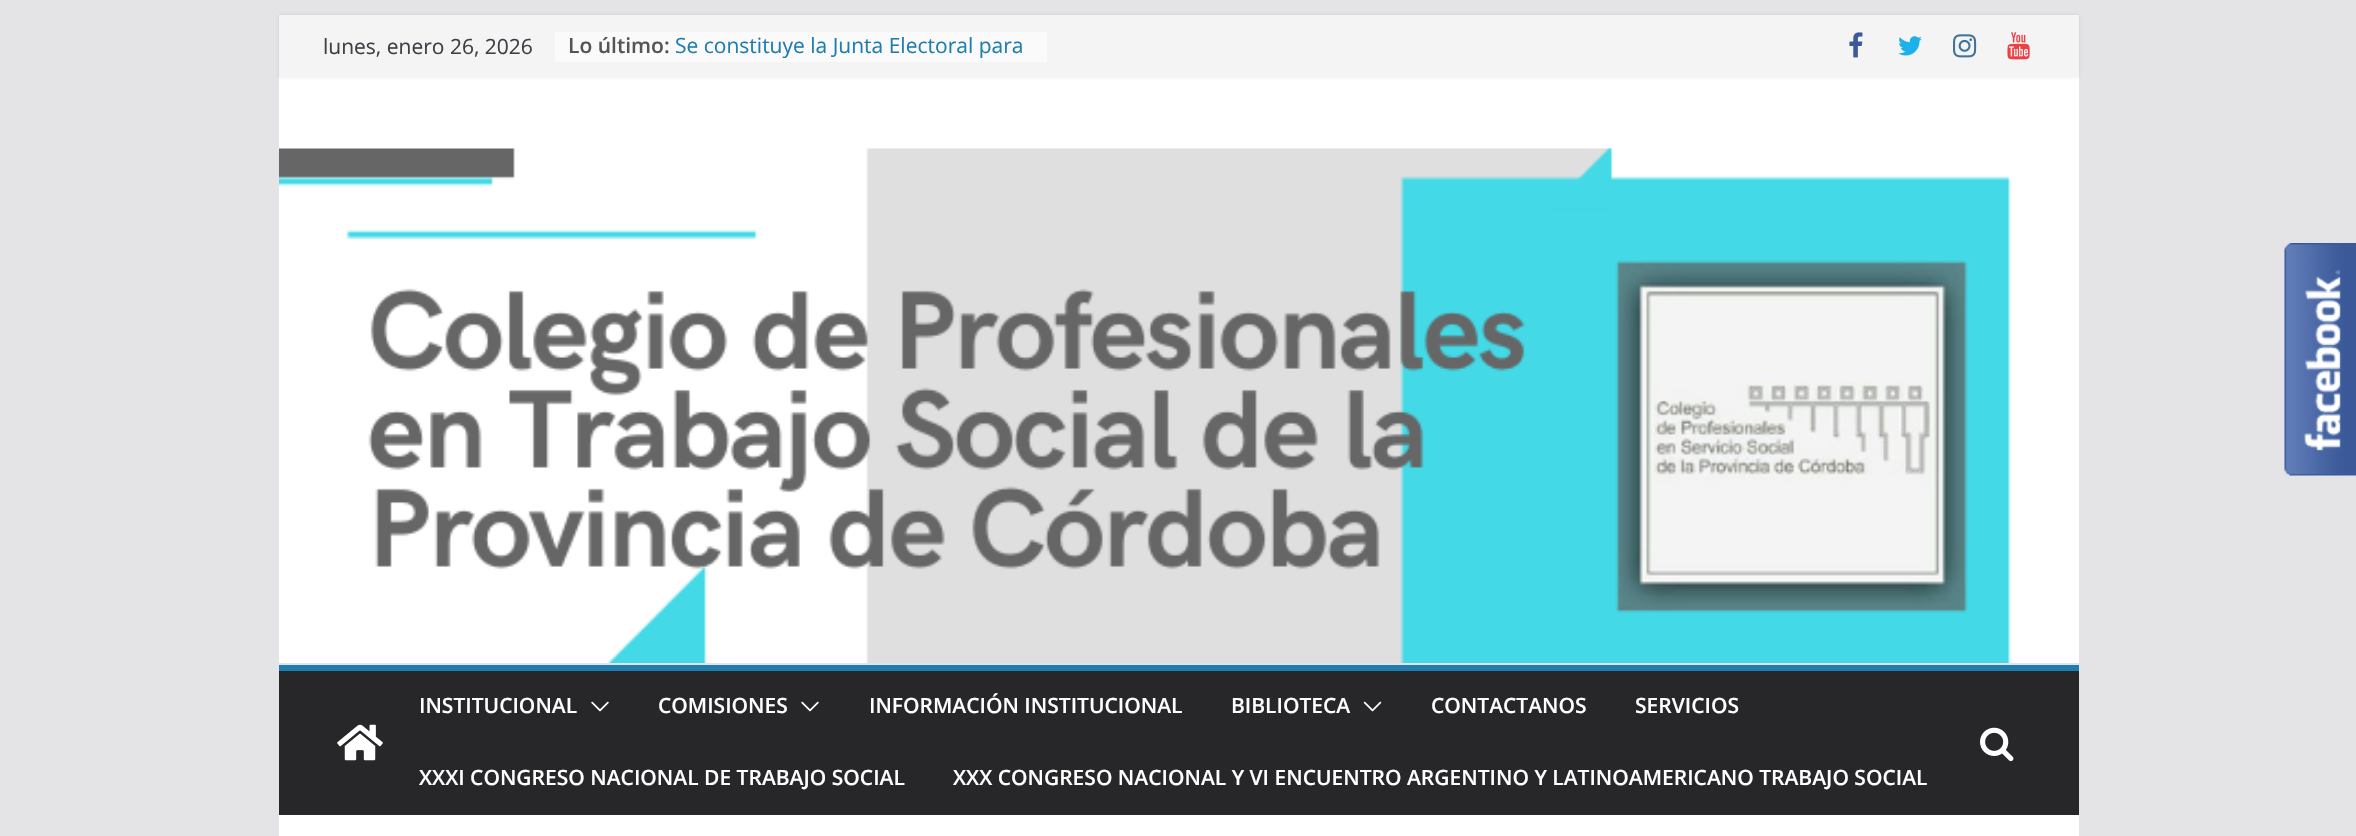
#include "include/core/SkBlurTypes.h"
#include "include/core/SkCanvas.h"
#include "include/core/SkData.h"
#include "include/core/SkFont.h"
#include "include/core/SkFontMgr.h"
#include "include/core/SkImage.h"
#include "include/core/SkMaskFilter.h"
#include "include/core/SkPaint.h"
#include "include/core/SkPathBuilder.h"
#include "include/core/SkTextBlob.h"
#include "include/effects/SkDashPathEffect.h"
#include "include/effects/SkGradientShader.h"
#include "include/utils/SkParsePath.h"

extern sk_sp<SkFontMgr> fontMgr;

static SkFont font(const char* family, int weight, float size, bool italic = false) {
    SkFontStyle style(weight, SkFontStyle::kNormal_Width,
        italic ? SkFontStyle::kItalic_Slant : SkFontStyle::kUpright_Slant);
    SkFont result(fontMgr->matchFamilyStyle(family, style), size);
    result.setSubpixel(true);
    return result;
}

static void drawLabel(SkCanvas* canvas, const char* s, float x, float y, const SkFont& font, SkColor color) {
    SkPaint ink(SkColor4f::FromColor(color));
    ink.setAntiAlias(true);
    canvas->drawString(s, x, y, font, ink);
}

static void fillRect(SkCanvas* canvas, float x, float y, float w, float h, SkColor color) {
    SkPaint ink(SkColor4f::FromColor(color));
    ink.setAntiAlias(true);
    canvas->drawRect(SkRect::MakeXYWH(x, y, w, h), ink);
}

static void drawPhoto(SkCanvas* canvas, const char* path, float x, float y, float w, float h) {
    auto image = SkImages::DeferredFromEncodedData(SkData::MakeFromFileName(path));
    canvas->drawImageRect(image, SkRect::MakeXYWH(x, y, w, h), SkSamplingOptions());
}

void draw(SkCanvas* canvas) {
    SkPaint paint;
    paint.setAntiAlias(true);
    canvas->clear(0xFFE4E4E7);
    fillRect(canvas, 279, 77, 1800, 586, 0xFFFFFFFF);
    paint.setColor(0x1A000000);
    paint.setMaskFilter(SkMaskFilter::MakeBlur(kNormal_SkBlurStyle, 1.5f));
    canvas->drawRect(SkRect::MakeXYWH(279, 15, 1800, 62), paint);
    paint.setMaskFilter(nullptr);
    fillRect(canvas, 279, 15, 1800, 62, 0xFFF4F4F5);
    SkFont font1 = font("Open Sans", 400, 21);
    drawLabel(canvas, "lunes, enero 26, 2026", 323, 54, font1, 0xFF3F3F46);
    fillRect(canvas, 555, 32, 492, 30, 0xFFFAFAFA);
    SkFont font2 = font("Open Sans", 600, 21);
    drawLabel(canvas, "Lo último:", 568, 53, font2, 0xFF555555);
    drawLabel(canvas, "Se constituye la Junta Electoral para", 675, 53, font1, 0xFF207DAF);
    drawPhoto(canvas, "assets/img1.png", 1849, 32, 14, 26);
    drawPhoto(canvas, "assets/img2.png", 1898, 36, 24, 20);
    drawPhoto(canvas, "assets/img3.png", 1953, 34, 24, 24);
    drawPhoto(canvas, "assets/img4.png", 2007, 32, 23, 28);
    drawPhoto(canvas, "assets/img5.png", 279, 148, 1733, 515);
    fillRect(canvas, 279, 671, 1800, 144, 0xFF27272A);
    fillRect(canvas, 279, 665, 1800, 6, 0xFF207DAF);
    drawPhoto(canvas, "assets/img6.png", 337, 724, 46, 37);
    drawLabel(canvas, "INSTITUCIONAL", 419, 713, font2, 0xFFFFFFFF);
    drawPhoto(canvas, "assets/img7.png", 591, 701, 18, 11);
    drawLabel(canvas, "COMISIONES", 658, 713, font2, 0xFFFFFFFF);
    drawPhoto(canvas, "assets/img7.png", 801, 701, 18, 11);
    drawLabel(canvas, "INFORMACIÓN INSTITUCIONAL", 869, 713, font2, 0xFFFFFFFF);
    drawLabel(canvas, "BIBLIOTECA", 1231, 713, font2, 0xFFFFFFFF);
    drawPhoto(canvas, "assets/img8.png", 1363, 701, 19, 11);
    drawLabel(canvas, "CONTACTANOS", 1431, 713, font2, 0xFFFFFFFF);
    drawLabel(canvas, "SERVICIOS", 1635, 713, font2, 0xFFFFFFFF);
    drawLabel(canvas, "XXXI CONGRESO NACIONAL DE TRABAJO SOCIAL", 419, 785, font2, 0xFFFFFFFF);
    drawLabel(canvas, "XXX CONGRESO NACIONAL Y VI ENCUENTRO ARGENTINO Y LATINOAMERICANO TRABAJO SOCIAL", 953, 785, font2, 0xFFFFFFFF);
    drawPhoto(canvas, "assets/img9.png", 1980, 727, 34, 35);
    fillRect(canvas, 279, 815, 1800, 21, 0xFFFFFFFF);
    drawPhoto(canvas, "assets/img10.png", 2284, 243, 72, 233);
}
